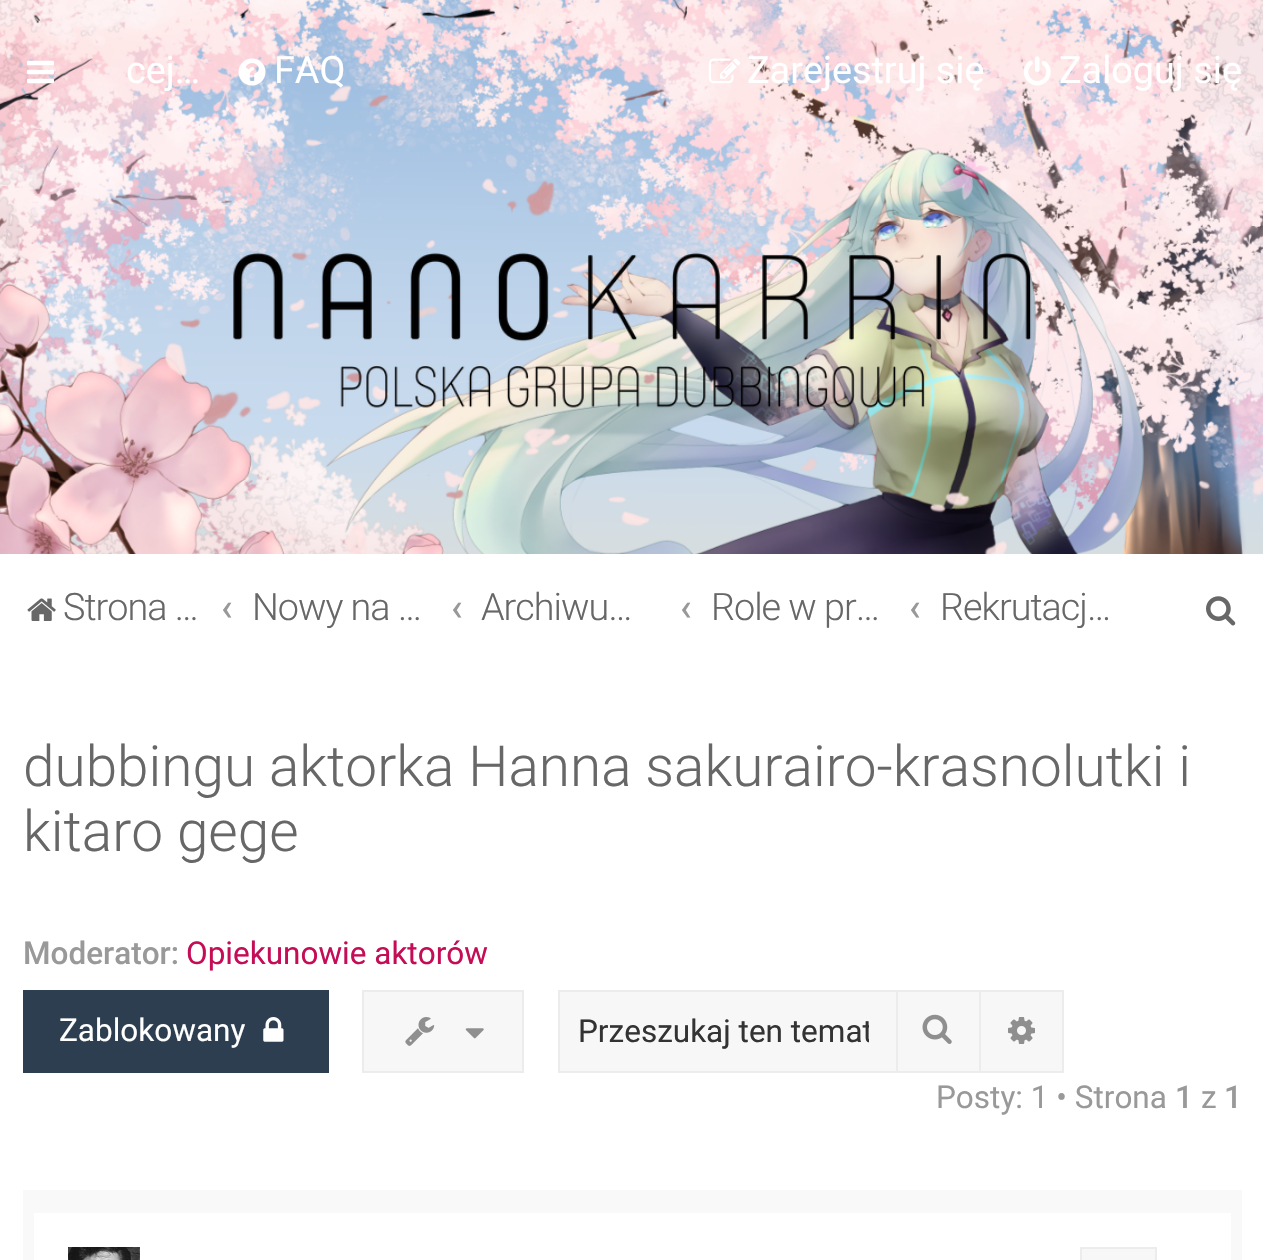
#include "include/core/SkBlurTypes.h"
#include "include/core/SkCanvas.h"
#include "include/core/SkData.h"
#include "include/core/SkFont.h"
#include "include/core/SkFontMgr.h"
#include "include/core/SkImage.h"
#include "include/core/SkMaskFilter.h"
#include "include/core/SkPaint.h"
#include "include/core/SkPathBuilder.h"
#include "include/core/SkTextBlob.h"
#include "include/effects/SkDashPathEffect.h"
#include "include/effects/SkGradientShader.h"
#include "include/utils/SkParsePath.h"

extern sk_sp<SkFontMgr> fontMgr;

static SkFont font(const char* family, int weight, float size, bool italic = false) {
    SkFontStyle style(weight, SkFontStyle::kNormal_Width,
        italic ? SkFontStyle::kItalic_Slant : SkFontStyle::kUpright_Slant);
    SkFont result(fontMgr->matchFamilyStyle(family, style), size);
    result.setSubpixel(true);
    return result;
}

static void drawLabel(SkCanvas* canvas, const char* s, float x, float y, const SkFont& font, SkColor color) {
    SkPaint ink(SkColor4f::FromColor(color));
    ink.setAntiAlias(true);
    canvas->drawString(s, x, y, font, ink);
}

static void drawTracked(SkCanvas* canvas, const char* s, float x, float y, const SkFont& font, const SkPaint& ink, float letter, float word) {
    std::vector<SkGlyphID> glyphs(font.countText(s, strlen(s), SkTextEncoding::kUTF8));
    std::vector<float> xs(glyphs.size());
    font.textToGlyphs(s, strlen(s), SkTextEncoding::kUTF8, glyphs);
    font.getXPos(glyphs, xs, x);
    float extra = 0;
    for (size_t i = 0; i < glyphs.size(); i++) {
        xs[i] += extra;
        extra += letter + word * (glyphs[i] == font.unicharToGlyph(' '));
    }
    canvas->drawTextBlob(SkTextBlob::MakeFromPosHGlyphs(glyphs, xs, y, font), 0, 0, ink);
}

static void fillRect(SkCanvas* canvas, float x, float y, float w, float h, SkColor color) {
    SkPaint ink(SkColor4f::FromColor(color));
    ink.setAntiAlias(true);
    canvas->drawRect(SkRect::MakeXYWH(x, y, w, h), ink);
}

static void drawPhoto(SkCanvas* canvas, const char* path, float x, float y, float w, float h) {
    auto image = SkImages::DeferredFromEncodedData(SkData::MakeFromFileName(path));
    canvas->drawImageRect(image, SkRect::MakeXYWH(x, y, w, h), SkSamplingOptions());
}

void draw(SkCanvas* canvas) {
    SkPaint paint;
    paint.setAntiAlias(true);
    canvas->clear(0xFFFFFFFF);
    drawPhoto(canvas, "assets/img1.png", 0, 0, 1263, 554);
    drawPhoto(canvas, "assets/img2.png", 27, 60, 27, 24);
    SkFont font1 = font("Roboto", 400, 37.75f);
    drawLabel(canvas, "cej…", 126, 83, font1, 0xFFFFFFFF);
    drawPhoto(canvas, "assets/img3.png", 238, 58, 28, 28);
    drawLabel(canvas, "FAQ", 274, 83, font1, 0xFFFFFFFF);
    drawPhoto(canvas, "assets/img4.png", 708, 58, 32, 26);
    drawLabel(canvas, "Zarejestruj się", 747, 83, font1, 0xFFFFFFFF);
    drawPhoto(canvas, "assets/img5.png", 1023, 56, 28, 30);
    drawLabel(canvas, "Zaloguj się", 1059, 83, font1, 0xFFFFFFFF);
    drawPhoto(canvas, "assets/img6.png", 233, 252, 799, 156);
    drawPhoto(canvas, "assets/img7.png", 27, 598, 29, 23);
    SkFont font2 = font("Roboto", 300, 37.75f);
    paint.setColor(0xFF676767);
    drawTracked(canvas, "Strona …", 63, 620, font2, paint, -1, 0);
    SkFont font3 = font("Roboto", 500, 37.75f);
    drawLabel(canvas, "‹", 221, 620, font3, 0xFF999999);
    drawTracked(canvas, "Nowy na …", 252, 620, font2, paint, -1, 0);
    drawLabel(canvas, "‹", 451, 620, font3, 0xFF999999);
    drawTracked(canvas, "Archiwu…", 481, 620, font2, paint, -1, 0);
    drawLabel(canvas, "‹", 680, 620, font3, 0xFF999999);
    drawTracked(canvas, "Role w pr…", 711, 620, font2, paint, -1, 0);
    drawLabel(canvas, "‹", 909, 620, font3, 0xFF999999);
    drawTracked(canvas, "Rekrutacj…", 940, 620, font2, paint, -1, 0);
    drawPhoto(canvas, "assets/img8.png", 1206, 596, 30, 30);
    SkFont font4 = font("Roboto", 300, 56.7f);
    drawLabel(canvas, "dubbingu aktorka Hanna sakurairo-krasnolutki i", 23, 786, font4, 0xFF676767);
    drawLabel(canvas, "kitaro gege", 23, 851, font4, 0xFF676767);
    SkFont font5 = font("Roboto", 500, 31.5f);
    drawLabel(canvas, "Moderator:", 23, 964, font5, 0xFF999999);
    SkFont font6 = font("Roboto", 400, 31.5f);
    drawLabel(canvas, "Opiekunowie aktorów", 186, 964, font6, 0xFFC50D57);
    fillRect(canvas, 23, 990, 306, 83, 0xFF2C3E50);
    drawLabel(canvas, "Zablokowany", 59, 1041, font6, 0xFFFFFFFF);
    drawPhoto(canvas, "assets/img9.png", 263, 1017, 21, 25);
    paint.setColor(0xFFF7F7F7);
    canvas->drawRect(SkRect::MakeXYWH(363, 991, 160, 81), paint);
    paint.setStroke(true);
    paint.setStrokeWidth(2);
    paint.setColor(0xFFEDECEC);
    canvas->drawRect(SkRect::MakeXYWH(363, 991, 160, 81), paint);
    drawPhoto(canvas, "assets/img10.png", 405, 1017, 30, 29);
    drawPhoto(canvas, "assets/img11.png", 465, 1028, 19, 11);
    fillRect(canvas, 560, 992, 336, 79, 0xFFF7F7F7);
    fillRect(canvas, 558, 990, 338, 2, 0xFFEDECEC);
    fillRect(canvas, 558, 1071, 338, 2, 0xFFEDECEC);
    fillRect(canvas, 558, 990, 2, 83, 0xFFEDECEC);
    canvas->save();
    canvas->clipRect(SkRect::MakeXYWH(578, 1013, 291, 36));
    drawLabel(canvas, "Przeszukaj ten temat", 578, 1042, font6, 0xFF333333);
    canvas->restore();
    paint.setStroke(false);
    paint.setColor(0xFFF7F7F7);
    canvas->drawRect(SkRect::MakeXYWH(897, 991, 83, 81), paint);
    paint.setStroke(true);
    paint.setColor(0xFFEDECEC);
    canvas->drawRect(SkRect::MakeXYWH(897, 991, 83, 81), paint);
    drawPhoto(canvas, "assets/img12.png", 922, 1014, 30, 30);
    fillRect(canvas, 981, 992, 81, 79, 0xFFF7F7F7);
    fillRect(canvas, 981, 990, 83, 2, 0xFFEDECEC);
    fillRect(canvas, 1062, 990, 2, 83, 0xFFEDECEC);
    fillRect(canvas, 981, 1071, 83, 2, 0xFFEDECEC);
    drawPhoto(canvas, "assets/img13.png", 1008, 1017, 27, 27);
    drawLabel(canvas, "Posty: 1 • Strona", 936, 1108, font6, 0xFF999999);
    drawLabel(canvas, "1", 1175, 1108, font5, 0xFF999999);
    drawLabel(canvas, "z", 1201, 1108, font6, 0xFF999999);
    drawLabel(canvas, "1", 1224, 1108, font5, 0xFF999999);
    fillRect(canvas, 23, 1190, 1219, 70, 0xFFF9F9F9);
    fillRect(canvas, 34, 1213, 1197, 47, 0xFFFFFFFF);
    drawPhoto(canvas, "assets/img14.png", 68, 1247, 72, 13);
    paint.setStroke(false);
    paint.setColor(0xFFF7F7F7);
    canvas->drawRect(SkRect::MakeXYWH(1081, 1248, 75, 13), paint);
    paint.setStroke(true);
    paint.setColor(0xFFEDECEC);
    canvas->drawRect(SkRect::MakeXYWH(1081, 1248, 75, 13), paint);
}
